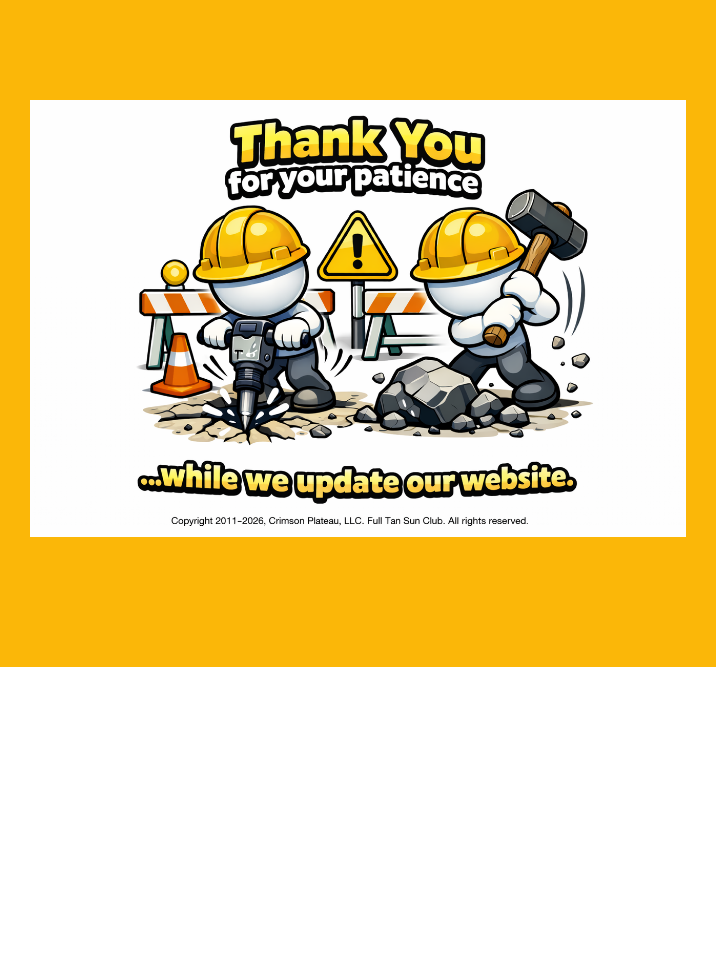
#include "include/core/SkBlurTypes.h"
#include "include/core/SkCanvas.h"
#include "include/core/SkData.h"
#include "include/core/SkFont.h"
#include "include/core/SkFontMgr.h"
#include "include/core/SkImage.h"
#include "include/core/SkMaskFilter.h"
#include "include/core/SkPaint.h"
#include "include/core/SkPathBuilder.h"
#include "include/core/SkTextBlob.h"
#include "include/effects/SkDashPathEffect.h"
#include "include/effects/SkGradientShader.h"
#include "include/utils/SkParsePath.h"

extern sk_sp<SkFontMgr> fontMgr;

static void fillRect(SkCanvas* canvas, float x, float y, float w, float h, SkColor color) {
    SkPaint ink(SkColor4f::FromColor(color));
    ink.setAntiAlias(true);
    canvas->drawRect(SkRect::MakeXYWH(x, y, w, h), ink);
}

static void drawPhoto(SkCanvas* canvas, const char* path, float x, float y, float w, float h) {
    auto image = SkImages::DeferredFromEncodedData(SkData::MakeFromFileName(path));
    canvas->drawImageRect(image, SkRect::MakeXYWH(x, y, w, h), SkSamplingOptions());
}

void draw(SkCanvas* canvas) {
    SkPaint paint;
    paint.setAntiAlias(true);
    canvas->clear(0xFFFFFFFF);
    fillRect(canvas, 0, 0, 716, 667, 0xFFFBB708);
    drawPhoto(canvas, "assets/img1.png", 30, 100, 656, 437);
}
